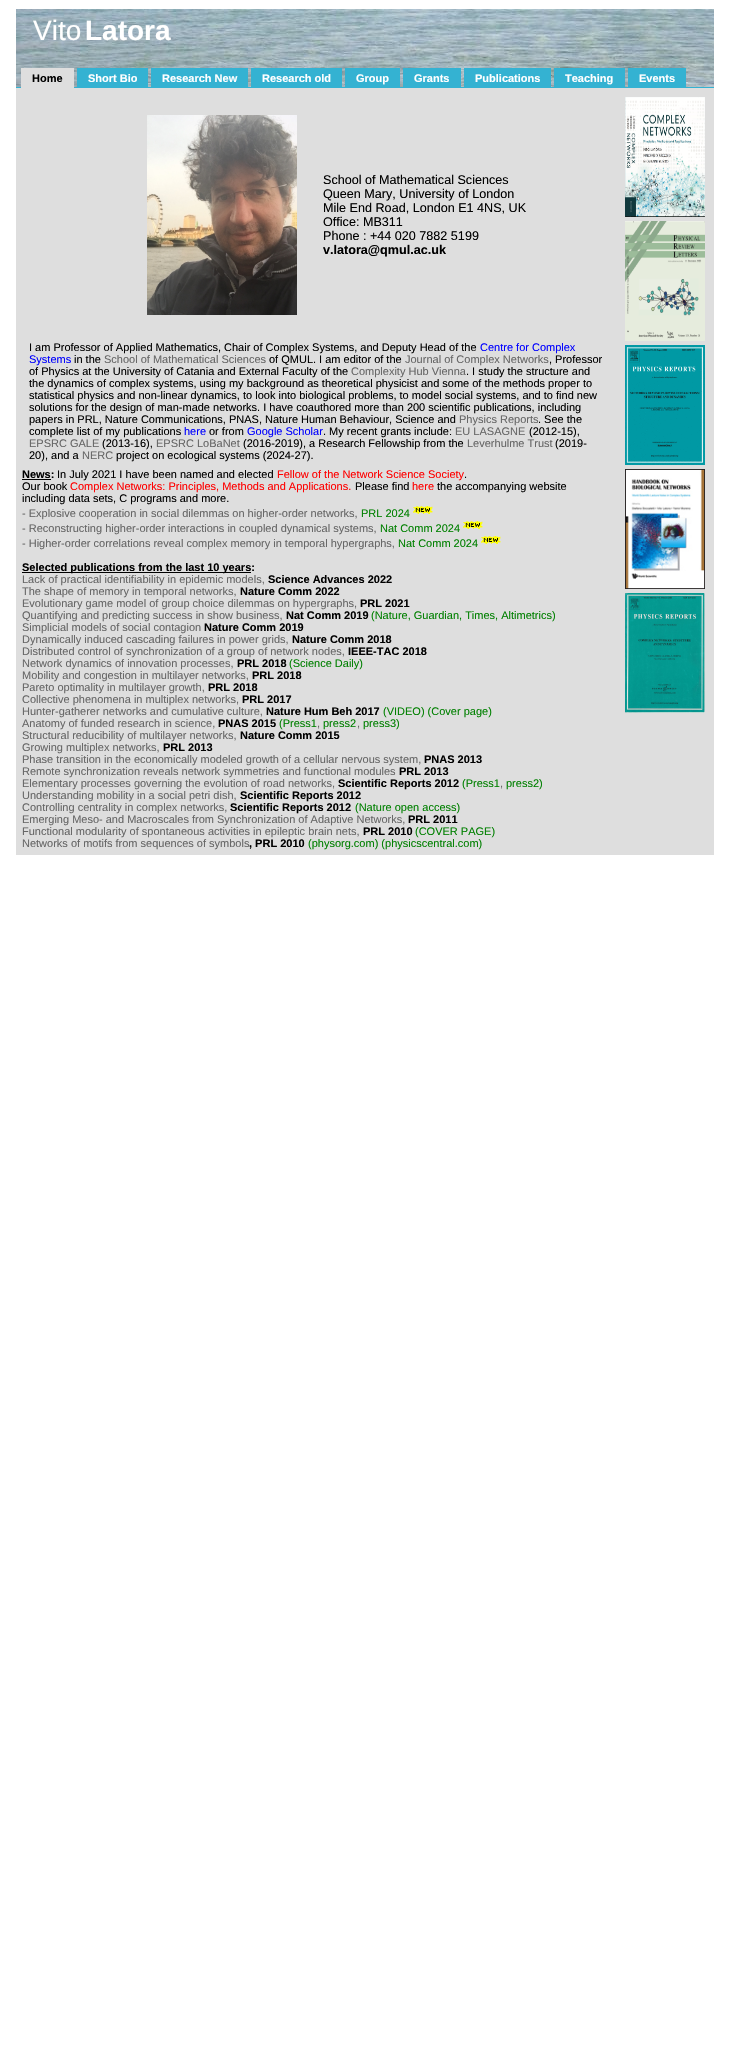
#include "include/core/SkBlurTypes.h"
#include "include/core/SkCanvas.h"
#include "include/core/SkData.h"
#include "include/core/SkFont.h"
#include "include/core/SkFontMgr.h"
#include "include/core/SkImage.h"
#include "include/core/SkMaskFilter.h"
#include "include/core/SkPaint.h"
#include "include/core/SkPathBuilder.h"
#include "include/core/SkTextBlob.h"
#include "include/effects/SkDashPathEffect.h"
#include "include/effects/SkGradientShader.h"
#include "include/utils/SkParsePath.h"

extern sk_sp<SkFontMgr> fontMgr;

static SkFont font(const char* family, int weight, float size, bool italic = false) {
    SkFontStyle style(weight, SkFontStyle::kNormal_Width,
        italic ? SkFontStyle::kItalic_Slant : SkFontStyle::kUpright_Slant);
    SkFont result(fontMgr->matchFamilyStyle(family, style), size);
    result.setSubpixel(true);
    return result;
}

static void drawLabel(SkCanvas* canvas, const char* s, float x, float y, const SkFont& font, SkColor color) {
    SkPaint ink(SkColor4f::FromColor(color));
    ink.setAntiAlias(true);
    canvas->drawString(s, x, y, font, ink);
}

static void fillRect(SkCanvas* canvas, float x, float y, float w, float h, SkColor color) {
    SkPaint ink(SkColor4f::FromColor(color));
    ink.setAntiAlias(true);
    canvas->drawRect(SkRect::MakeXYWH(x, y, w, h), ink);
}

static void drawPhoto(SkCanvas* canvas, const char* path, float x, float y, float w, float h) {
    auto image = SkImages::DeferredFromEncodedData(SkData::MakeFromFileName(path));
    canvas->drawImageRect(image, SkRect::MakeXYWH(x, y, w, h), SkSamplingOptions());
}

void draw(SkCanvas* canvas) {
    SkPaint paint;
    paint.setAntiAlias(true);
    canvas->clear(0xFFFFFFFF);
    drawPhoto(canvas, "assets/img1.png", 16, 9, 698, 78);
    SkFont font1 = font("Liberation Sans", 400, 28);
    drawLabel(canvas, "Vito", 33, 40, font1, 0xFFFFFFFF);
    SkFont font2 = font("Liberation Sans", 700, 28);
    drawLabel(canvas, "Latora", 85, 40, font2, 0xFFFFFFFF);
    fillRect(canvas, 16, 87, 698, 1, 0xFF34B2D2);
    fillRect(canvas, 21, 68, 53, 20, 0xFFDEDEDE);
    SkFont font3 = font("Liberation Sans", 700, 11);
    drawLabel(canvas, "Home", 32, 82, font3, 0xFF000000);
    fillRect(canvas, 77, 68, 71, 19, 0xFF34B2D2);
    drawLabel(canvas, "Short Bio", 88, 82, font3, 0xFFFFFFFF);
    fillRect(canvas, 151, 68, 97, 19, 0xFF34B2D2);
    drawLabel(canvas, "Research New", 162, 82, font3, 0xFFFFFFFF);
    fillRect(canvas, 251, 68, 91, 19, 0xFF34B2D2);
    drawLabel(canvas, "Research old", 262, 82, font3, 0xFFFFFFFF);
    fillRect(canvas, 345, 68, 55, 19, 0xFF34B2D2);
    drawLabel(canvas, "Group", 356, 82, font3, 0xFFFFFFFF);
    fillRect(canvas, 403, 68, 58, 19, 0xFF34B2D2);
    drawLabel(canvas, "Grants", 414, 82, font3, 0xFFFFFFFF);
    fillRect(canvas, 464, 68, 87, 19, 0xFF34B2D2);
    drawLabel(canvas, "Publications", 475, 82, font3, 0xFFFFFFFF);
    fillRect(canvas, 554, 68, 71, 19, 0xFF34B2D2);
    drawLabel(canvas, "Teaching", 565, 82, font3, 0xFFFFFFFF);
    fillRect(canvas, 628, 68, 58, 19, 0xFF34B2D2);
    drawLabel(canvas, "Events", 639, 82, font3, 0xFFFFFFFF);
    fillRect(canvas, 16, 88, 698, 767, 0xFFDEDEDE);
    drawPhoto(canvas, "assets/img2.png", 147, 115, 150, 200);
    SkFont font4 = font("Liberation Sans", 400, 12.6f);
    drawLabel(canvas, "School of Mathematical Sciences", 323, 184, font4, 0xFF000000);
    drawLabel(canvas, "Queen Mary, University of London", 323, 198, font4, 0xFF000000);
    drawLabel(canvas, "Mile End Road, London E1 4NS, UK", 323, 212, font4, 0xFF000000);
    drawLabel(canvas, "Office: MB311", 323, 226, font4, 0xFF000000);
    drawLabel(canvas, "Phone : +44 020 7882 5199", 323, 240, font4, 0xFF000000);
    SkFont font5 = font("Liberation Sans", 700, 12.6f);
    drawLabel(canvas, "v.latora@qmul.ac.uk", 323, 254, font5, 0xFF000000);
    SkFont font6 = font("Liberation Sans", 400, 11);
    drawLabel(canvas, "I am Professor of Applied Mathematics, Chair of Complex Systems, and Deputy Head of the", 29, 351, font6, 0xFF000000);
    drawLabel(canvas, "Centre for Complex", 480, 351, font6, 0xFF0000FF);
    drawLabel(canvas, "Systems", 29, 363, font6, 0xFF0000FF);
    drawLabel(canvas, "in the", 74, 363, font6, 0xFF000000);
    drawLabel(canvas, "School of Mathematical Sciences", 104, 363, font6, 0xFF666666);
    drawLabel(canvas, "of QMUL. I am editor of the", 269, 363, font6, 0xFF000000);
    drawLabel(canvas, "Journal of Complex Networks", 405, 363, font6, 0xFF666666);
    drawLabel(canvas, ", Professor", 549, 363, font6, 0xFF000000);
    drawLabel(canvas, "of Physics at the University of Catania and External Faculty of the", 29, 375, font6, 0xFF000000);
    drawLabel(canvas, "Complexity Hub Vienna", 351, 375, font6, 0xFF666666);
    drawLabel(canvas, ". I study the structure and", 466, 375, font6, 0xFF000000);
    drawLabel(canvas, "the dynamics of complex systems, using my background as theoretical physicist and some of the methods proper to", 29, 387, font6, 0xFF000000);
    drawLabel(canvas, "statistical physics and non-linear dynamics, to look into biological problems, to model social systems, and to find new", 29, 399, font6, 0xFF000000);
    drawLabel(canvas, "solutions for the design of man-made networks. I have coauthored more than 200 scientific publications, including", 29, 411, font6, 0xFF000000);
    drawLabel(canvas, "papers in PRL, Nature Communications, PNAS, Nature Human Behaviour, Science and", 29, 423, font6, 0xFF000000);
    drawLabel(canvas, "Physics Reports", 459, 423, font6, 0xFF666666);
    drawLabel(canvas, ". See the", 538, 423, font6, 0xFF000000);
    drawLabel(canvas, "complete list of my publications", 29, 435, font6, 0xFF000000);
    drawLabel(canvas, "here", 184, 435, font6, 0xFF0000FF);
    drawLabel(canvas, "or from", 209, 435, font6, 0xFF000000);
    drawLabel(canvas, "Google Scholar", 247, 435, font6, 0xFF0000FF);
    drawLabel(canvas, ". My recent grants include:", 323, 435, font6, 0xFF000000);
    drawLabel(canvas, "EU LASAGNE", 455, 435, font6, 0xFF666666);
    drawLabel(canvas, "(2012-15),", 529, 435, font6, 0xFF000000);
    drawLabel(canvas, "EPSRC GALE", 29, 447, font6, 0xFF666666);
    drawLabel(canvas, "(2013-16),", 102, 447, font6, 0xFF000000);
    drawLabel(canvas, "EPSRC LoBaNet", 156, 447, font6, 0xFF666666);
    drawLabel(canvas, "(2016-2019), a Research Fellowship from the", 243, 447, font6, 0xFF000000);
    drawLabel(canvas, "Leverhulme Trust", 467, 447, font6, 0xFF666666);
    drawLabel(canvas, "(2019-", 555, 447, font6, 0xFF000000);
    drawLabel(canvas, "20), and a", 29, 459, font6, 0xFF000000);
    drawLabel(canvas, "NERC", 82, 459, font6, 0xFF666666);
    drawLabel(canvas, "project on ecological systems (2024-27).", 116, 459, font6, 0xFF000000);
    drawLabel(canvas, "News:", 22, 478, font3, 0xFF000000);
    fillRect(canvas, 22, 479, 29, 1, 0xFF000000);
    drawLabel(canvas, "In July 2021 I have been named and elected", 57, 478, font6, 0xFF000000);
    drawLabel(canvas, "Fellow of the Network Science Society", 277, 478, font6, 0xFFFF0000);
    drawLabel(canvas, ".", 464, 478, font6, 0xFF000000);
    drawLabel(canvas, "Our book", 22, 490, font6, 0xFF000000);
    drawLabel(canvas, "Complex Networks: Principles, Methods and Applications.", 70, 490, font6, 0xFFFF0000);
    drawLabel(canvas, "Please find", 355, 490, font6, 0xFF000000);
    drawLabel(canvas, "here", 412, 490, font6, 0xFFFF0000);
    drawLabel(canvas, "the accompanying website", 437, 490, font6, 0xFF000000);
    drawLabel(canvas, "including data sets, C programs and more.", 22, 502, font6, 0xFF000000);
    drawLabel(canvas, "- Explosive cooperation in social dilemmas on higher-order networks,", 22, 517, font6, 0xFF666666);
    drawLabel(canvas, "PRL 2024", 361, 517, font6, 0xFF008000);
    drawPhoto(canvas, "assets/img3.png", 413, 506, 20, 8);
    drawLabel(canvas, "- Reconstructing higher-order interactions in coupled dynamical systems,", 22, 532, font6, 0xFF666666);
    drawLabel(canvas, "Nat Comm 2024", 380, 532, font6, 0xFF008000);
    drawPhoto(canvas, "assets/img4.png", 463, 521, 20, 8);
    drawLabel(canvas, "- Higher-order correlations reveal complex memory in temporal hypergraphs,", 22, 547, font6, 0xFF666666);
    drawLabel(canvas, "Nat Comm 2024", 398, 547, font6, 0xFF008000);
    drawPhoto(canvas, "assets/img4.png", 481, 536, 20, 8);
    fillRect(canvas, 22, 572, 229, 1, 0xFF000000);
    drawLabel(canvas, "Selected publications from the last 10 years:", 22, 571, font3, 0xFF000000);
    drawLabel(canvas, "Lack of practical identifiability in epidemic models,", 22, 583, font6, 0xFF666666);
    drawLabel(canvas, "Science Advances 2022", 268, 583, font3, 0xFF000000);
    drawLabel(canvas, "The shape of memory in temporal networks,", 22, 595, font6, 0xFF666666);
    drawLabel(canvas, "Nature Comm 2022", 240, 595, font3, 0xFF000000);
    drawLabel(canvas, "Evolutionary game model of group choice dilemmas on hypergraphs,", 22, 607, font6, 0xFF666666);
    drawLabel(canvas, "PRL 2021", 360, 607, font3, 0xFF000000);
    drawLabel(canvas, "Quantifying and predicting success in show business,", 22, 619, font6, 0xFF666666);
    drawLabel(canvas, "Nat Comm 2019", 286, 619, font3, 0xFF000000);
    drawLabel(canvas, "(Nature, Guardian, Times, Altimetrics)", 371, 619, font6, 0xFF008000);
    drawLabel(canvas, "Simplicial models of social contagion", 22, 631, font6, 0xFF666666);
    drawLabel(canvas, "Nature Comm 2019", 204, 631, font3, 0xFF000000);
    drawLabel(canvas, "Dynamically induced cascading failures in power grids,", 22, 643, font6, 0xFF666666);
    drawLabel(canvas, "Nature Comm 2018", 292, 643, font3, 0xFF000000);
    drawLabel(canvas, "Distributed control of synchronization of a group of network nodes,", 22, 655, font6, 0xFF666666);
    drawLabel(canvas, "IEEE-TAC 2018", 348, 655, font3, 0xFF000000);
    drawLabel(canvas, "Network dynamics of innovation processes,", 22, 667, font6, 0xFF666666);
    drawLabel(canvas, "PRL 2018", 237, 667, font3, 0xFF000000);
    drawLabel(canvas, "(Science Daily)", 289, 667, font6, 0xFF008000);
    drawLabel(canvas, "Mobility and congestion in multilayer networks,", 22, 679, font6, 0xFF666666);
    drawLabel(canvas, "PRL 2018", 252, 679, font3, 0xFF000000);
    drawLabel(canvas, "Pareto optimality in multilayer growth,", 22, 691, font6, 0xFF666666);
    drawLabel(canvas, "PRL 2018", 208, 691, font3, 0xFF000000);
    drawLabel(canvas, "Collective phenomena in multiplex networks,", 22, 703, font6, 0xFF666666);
    drawLabel(canvas, "PRL 2017", 242, 703, font3, 0xFF000000);
    drawLabel(canvas, "Hunter-gatherer networks and cumulative culture,", 22, 715, font6, 0xFF666666);
    drawLabel(canvas, "Nature Hum Beh 2017", 266, 715, font3, 0xFF000000);
    drawLabel(canvas, "(VIDEO) (Cover page)", 383, 715, font6, 0xFF008000);
    drawLabel(canvas, "Anatomy of funded research in science,", 22, 727, font6, 0xFF666666);
    drawLabel(canvas, "PNAS 2015", 218, 727, font3, 0xFF000000);
    drawLabel(canvas, "(Press1", 279, 727, font6, 0xFF008000);
    drawLabel(canvas, ",", 317, 727, font6, 0xFF666666);
    drawLabel(canvas, "press2", 323, 727, font6, 0xFF008000);
    drawLabel(canvas, ",", 357, 727, font6, 0xFF666666);
    drawLabel(canvas, "press3)", 363, 727, font6, 0xFF008000);
    drawLabel(canvas, "Structural reducibility of multilayer networks,", 22, 739, font6, 0xFF666666);
    drawLabel(canvas, "Nature Comm 2015", 240, 739, font3, 0xFF000000);
    drawLabel(canvas, "Growing multiplex networks,", 22, 751, font6, 0xFF666666);
    drawLabel(canvas, "PRL 2013", 163, 751, font3, 0xFF000000);
    drawLabel(canvas, "Phase transition in the economically modeled growth of a cellular nervous system,", 22, 763, font6, 0xFF666666);
    drawLabel(canvas, "PNAS 2013", 424, 763, font3, 0xFF000000);
    drawLabel(canvas, "Remote synchronization reveals network symmetries and functional modules", 22, 775, font6, 0xFF666666);
    drawLabel(canvas, "PRL 2013", 399, 775, font3, 0xFF000000);
    drawLabel(canvas, "Elementary processes governing the evolution of road networks,", 22, 787, font6, 0xFF666666);
    drawLabel(canvas, "Scientific Reports 2012", 338, 787, font3, 0xFF000000);
    drawLabel(canvas, "(Press1", 462, 787, font6, 0xFF008000);
    drawLabel(canvas, ",", 500, 787, font6, 0xFF666666);
    drawLabel(canvas, "press2)", 506, 787, font6, 0xFF008000);
    drawLabel(canvas, "Understanding mobility in a social petri dish,", 22, 799, font6, 0xFF666666);
    drawLabel(canvas, "Scientific Reports 2012", 240, 799, font3, 0xFF000000);
    drawLabel(canvas, "Controlling centrality in complex networks,", 22, 811, font6, 0xFF666666);
    drawLabel(canvas, "Scientific Reports 2012", 230, 811, font3, 0xFF000000);
    drawLabel(canvas, "(Nature open access)", 355, 811, font6, 0xFF008000);
    drawLabel(canvas, "Emerging Meso- and Macroscales from Synchronization of Adaptive Networks,", 22, 823, font6, 0xFF666666);
    drawLabel(canvas, "PRL 2011", 408, 823, font3, 0xFF000000);
    drawLabel(canvas, "Functional modularity of spontaneous activities in epileptic brain nets,", 22, 835, font6, 0xFF666666);
    drawLabel(canvas, "PRL 2010", 363, 835, font3, 0xFF000000);
    drawLabel(canvas, "(COVER PAGE)", 415, 835, font6, 0xFF008000);
    drawLabel(canvas, "Networks of motifs from sequences of symbols", 22, 847, font6, 0xFF666666);
    drawLabel(canvas, ", PRL 2010", 249, 847, font3, 0xFF000000);
    drawLabel(canvas, "(physorg.com) (physicscentral.com)", 308, 847, font6, 0xFF008000);
    drawPhoto(canvas, "assets/img5.png", 625, 97, 80, 120);
    drawPhoto(canvas, "assets/img6.png", 625, 221, 80, 120);
    drawPhoto(canvas, "assets/img7.png", 625, 345, 80, 120);
    drawPhoto(canvas, "assets/img8.png", 625, 469, 80, 120);
    drawPhoto(canvas, "assets/img9.png", 625, 593, 80, 120);
}
